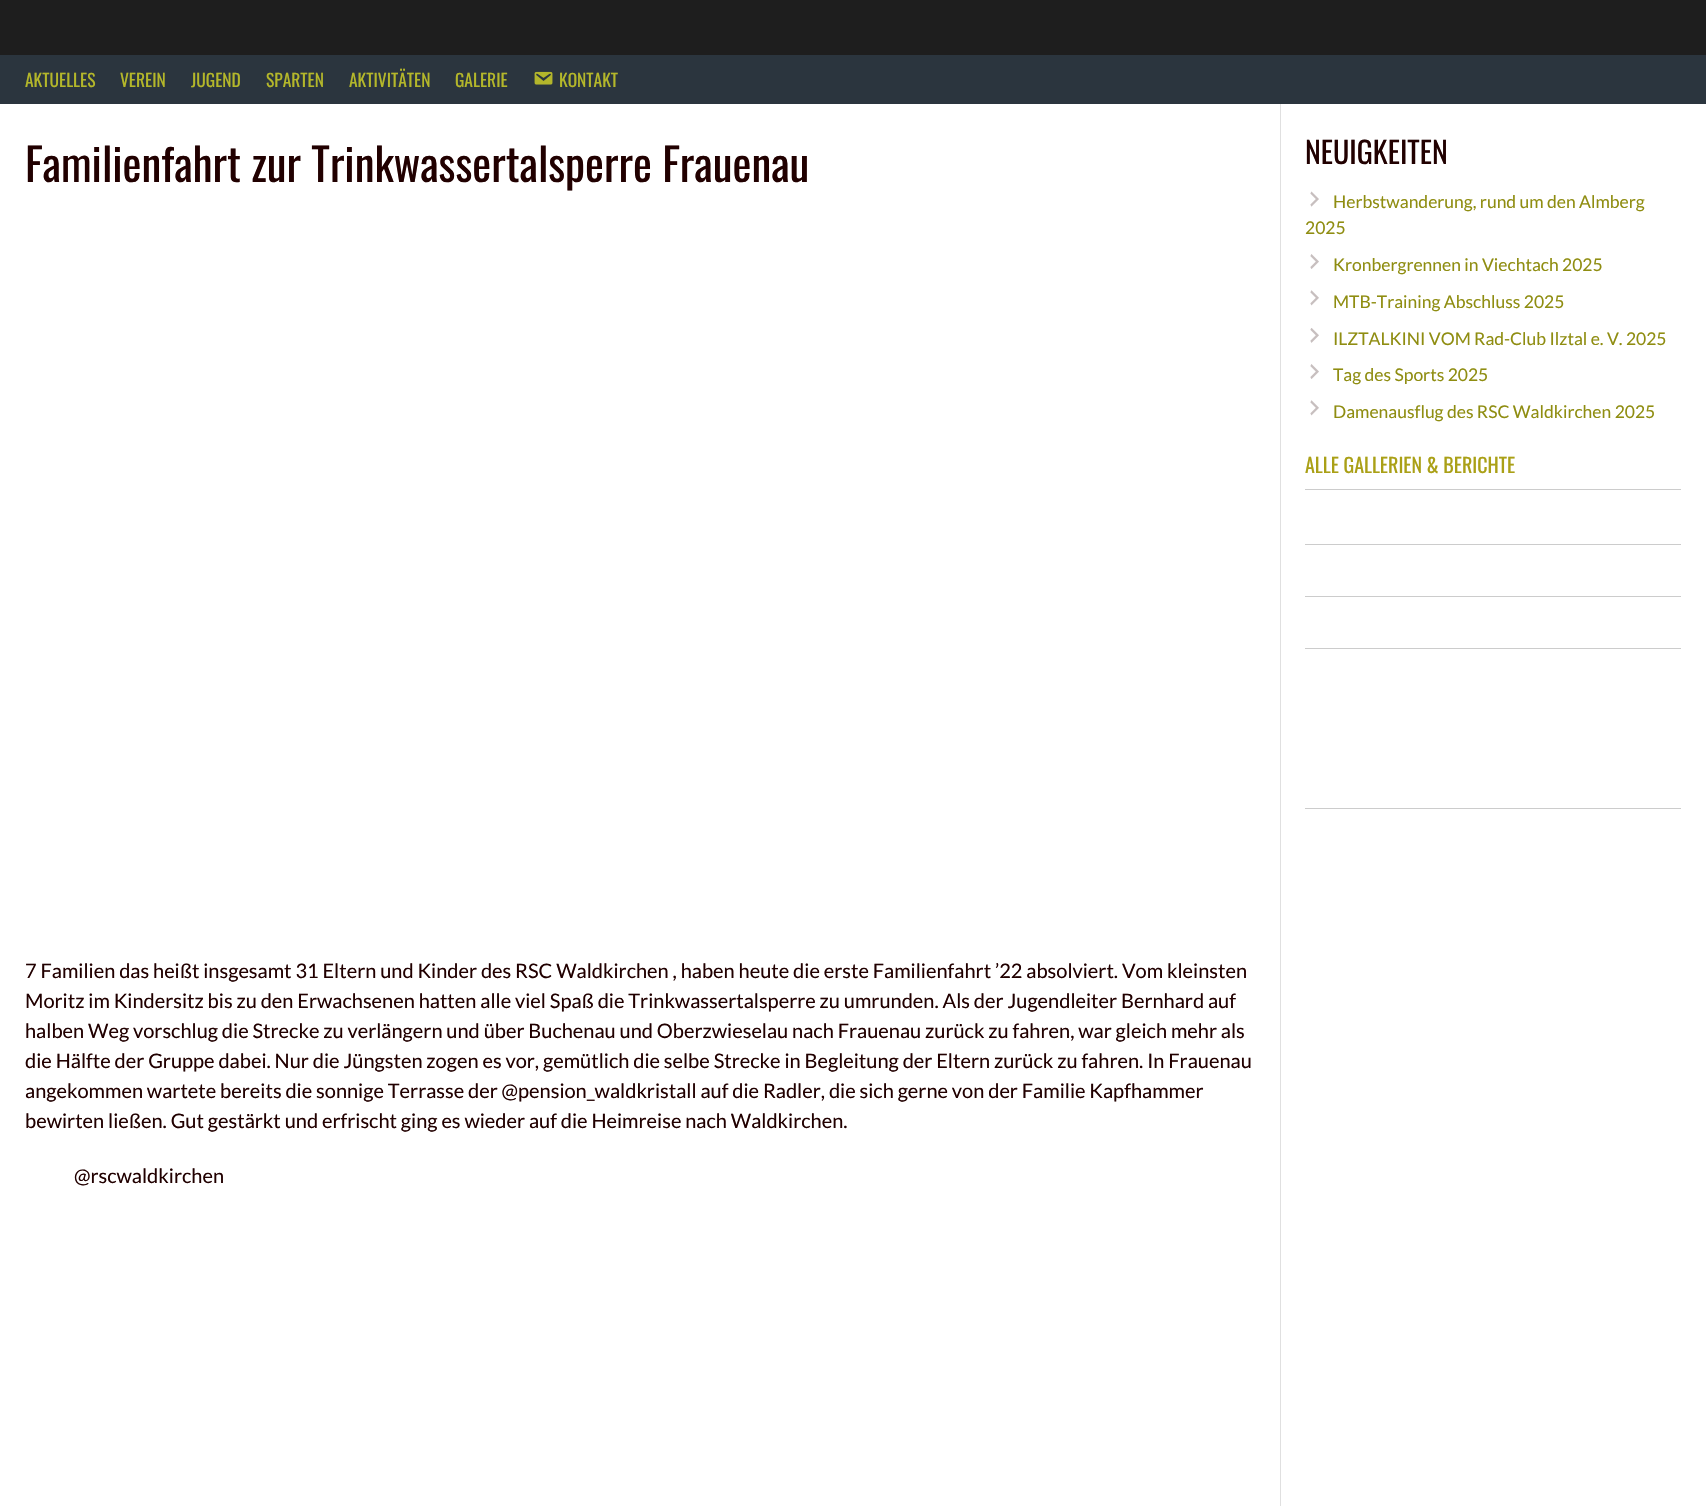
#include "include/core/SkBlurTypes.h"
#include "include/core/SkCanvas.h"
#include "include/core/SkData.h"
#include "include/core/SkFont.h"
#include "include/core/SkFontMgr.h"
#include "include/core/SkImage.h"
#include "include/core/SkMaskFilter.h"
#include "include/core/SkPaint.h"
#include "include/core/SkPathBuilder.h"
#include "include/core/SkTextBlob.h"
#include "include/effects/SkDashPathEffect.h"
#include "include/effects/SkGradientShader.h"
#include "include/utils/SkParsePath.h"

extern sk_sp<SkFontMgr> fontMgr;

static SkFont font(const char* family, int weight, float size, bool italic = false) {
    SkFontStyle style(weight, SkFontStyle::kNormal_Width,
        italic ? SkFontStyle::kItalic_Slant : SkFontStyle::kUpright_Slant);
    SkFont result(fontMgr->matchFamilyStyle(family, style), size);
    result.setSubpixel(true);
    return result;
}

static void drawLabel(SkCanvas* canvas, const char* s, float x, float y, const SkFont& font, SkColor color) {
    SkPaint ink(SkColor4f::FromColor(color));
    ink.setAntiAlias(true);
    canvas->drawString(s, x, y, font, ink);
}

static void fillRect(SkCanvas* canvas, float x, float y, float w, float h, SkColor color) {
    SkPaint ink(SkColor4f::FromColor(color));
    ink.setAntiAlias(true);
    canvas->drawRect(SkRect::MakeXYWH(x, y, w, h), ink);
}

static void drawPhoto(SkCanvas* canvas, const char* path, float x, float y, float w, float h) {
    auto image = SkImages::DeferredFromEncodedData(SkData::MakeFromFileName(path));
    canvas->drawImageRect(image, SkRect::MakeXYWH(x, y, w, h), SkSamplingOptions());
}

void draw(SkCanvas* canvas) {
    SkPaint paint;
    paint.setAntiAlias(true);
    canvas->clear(0xFF1E1E1E);
    fillRect(canvas, 0, 55, 1706, 49, 0xFF2B353E);
    SkFont font1 = font("Oswald", 400, 17.5f);
    drawLabel(canvas, "AKTUELLES", 25, 87, font1, 0xFFB4B72A);
    drawLabel(canvas, "VEREIN", 120, 87, font1, 0xFFB4B72A);
    drawLabel(canvas, "JUGEND", 191, 87, font1, 0xFFB4B72A);
    drawLabel(canvas, "SPARTEN", 266, 87, font1, 0xFFB4B72A);
    drawLabel(canvas, "AKTIVITÄTEN", 349, 87, font1, 0xFFB4B72A);
    drawLabel(canvas, "GALERIE", 455, 87, font1, 0xFFB4B72A);
    drawPhoto(canvas, "assets/img1.png", 534, 71, 19, 14);
    drawLabel(canvas, "KONTAKT", 559, 87, font1, 0xFFB4B72A);
    fillRect(canvas, 0, 104, 1706, 1402, 0xFFFFFFFF);
    fillRect(canvas, 1280, 104, 1, 1402, 0xFFE0E0E0);
    SkFont font2 = font("Oswald", 400, 45);
    drawLabel(canvas, "Familienfahrt zur Trinkwassertalsperre Frauenau", 25, 182, font2, 0xFF210000);
    SkFont font3 = font("Lato", 400, 20);
    drawLabel(canvas, "7 Familien das heißt insgesamt 31 Eltern und Kinder des RSC Waldkirchen , haben heute die erste Familienfahrt ’22 absolviert. Vom kleinsten", 25, 978, font3, 0xFF210000);
    drawLabel(canvas, "Moritz im Kindersitz bis zu den Erwachsenen hatten alle viel Spaß die Trinkwassertalsperre zu umrunden. Als der Jugendleiter Bernhard auf", 25, 1008, font3, 0xFF210000);
    drawLabel(canvas, "halben Weg vorschlug die Strecke zu verlängern und über Buchenau und Oberzwieselau nach Frauenau zurück zu fahren, war gleich mehr als", 25, 1038, font3, 0xFF210000);
    drawLabel(canvas, "die Hälfte der Gruppe dabei. Nur die Jüngsten zogen es vor, gemütlich die selbe Strecke in Begleitung der Eltern zurück zu fahren. In Frauenau", 25, 1068, font3, 0xFF210000);
    drawLabel(canvas, "angekommen wartete bereits die sonnige Terrasse der @pension_waldkristall auf die Radler, die sich gerne von der Familie Kapfhammer", 25, 1098, font3, 0xFF210000);
    drawLabel(canvas, "bewirten ließen. Gut gestärkt und erfrischt ging es wieder auf die Heimreise nach Waldkirchen.", 25, 1128, font3, 0xFF210000);
    drawLabel(canvas, "@rscwaldkirchen", 74, 1183, font3, 0xFF210000);
    SkFont font4 = font("Oswald", 400, 30);
    drawLabel(canvas, "NEUIGKEITEN", 1305, 164, font4, 0xFF210000);
    drawPhoto(canvas, "assets/img2.png", 1310, 191, 9, 16);
    SkFont font5 = font("Lato", 400, 17.5f);
    drawLabel(canvas, "Herbstwanderung, rund um den Almberg", 1333, 208, font5, 0xFF8F8D11);
    drawLabel(canvas, "2025", 1305, 234, font5, 0xFF8F8D11);
    drawPhoto(canvas, "assets/img3.png", 1310, 254, 9, 15);
    drawLabel(canvas, "Kronbergrennen in Viechtach 2025", 1333, 271, font5, 0xFF8F8D11);
    drawPhoto(canvas, "assets/img4.png", 1310, 290, 9, 16);
    drawLabel(canvas, "MTB-Training Abschluss 2025", 1333, 308, font5, 0xFF8F8D11);
    drawPhoto(canvas, "assets/img5.png", 1310, 328, 9, 15);
    drawLabel(canvas, "ILZTALKINI VOM Rad-Club Ilztal e. V. 2025", 1333, 345, font5, 0xFF8F8D11);
    drawPhoto(canvas, "assets/img3.png", 1310, 364, 9, 15);
    drawLabel(canvas, "Tag des Sports 2025", 1333, 381, font5, 0xFF8F8D11);
    drawPhoto(canvas, "assets/img4.png", 1310, 400, 9, 16);
    drawLabel(canvas, "Damenausflug des RSC Waldkirchen 2025", 1333, 418, font5, 0xFF8F8D11);
    SkFont font6 = font("Oswald", 400, 20);
    drawLabel(canvas, "ALLE GALLERIEN & BERICHTE", 1305, 473, font6, 0xFFAAA016);
    fillRect(canvas, 1305, 489, 376, 1, 0xFFCCCCCC);
    fillRect(canvas, 1305, 544, 376, 1, 0xFFCCCCCC);
    fillRect(canvas, 1305, 596, 376, 1, 0xFFCCCCCC);
    fillRect(canvas, 1305, 648, 376, 1, 0xFFCCCCCC);
    fillRect(canvas, 1305, 808, 376, 1, 0xFFCCCCCC);
}
